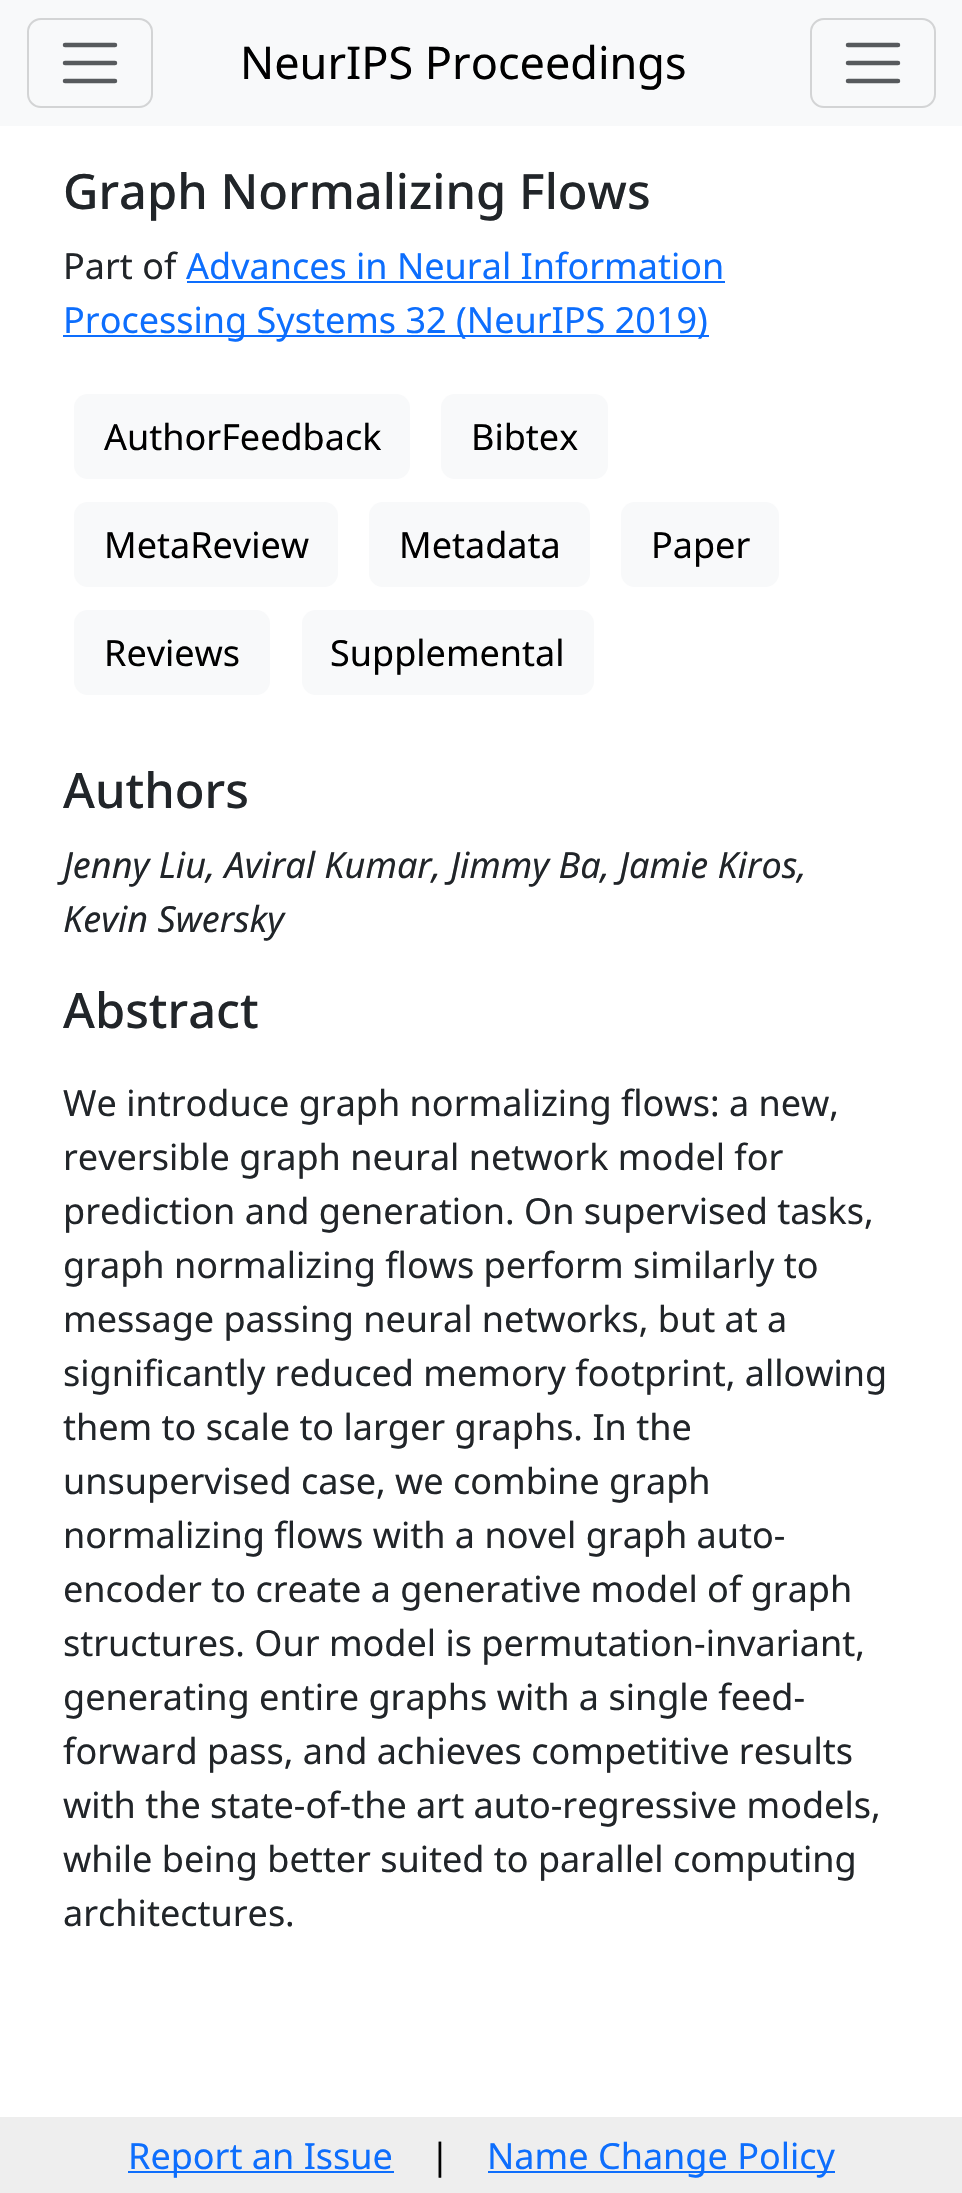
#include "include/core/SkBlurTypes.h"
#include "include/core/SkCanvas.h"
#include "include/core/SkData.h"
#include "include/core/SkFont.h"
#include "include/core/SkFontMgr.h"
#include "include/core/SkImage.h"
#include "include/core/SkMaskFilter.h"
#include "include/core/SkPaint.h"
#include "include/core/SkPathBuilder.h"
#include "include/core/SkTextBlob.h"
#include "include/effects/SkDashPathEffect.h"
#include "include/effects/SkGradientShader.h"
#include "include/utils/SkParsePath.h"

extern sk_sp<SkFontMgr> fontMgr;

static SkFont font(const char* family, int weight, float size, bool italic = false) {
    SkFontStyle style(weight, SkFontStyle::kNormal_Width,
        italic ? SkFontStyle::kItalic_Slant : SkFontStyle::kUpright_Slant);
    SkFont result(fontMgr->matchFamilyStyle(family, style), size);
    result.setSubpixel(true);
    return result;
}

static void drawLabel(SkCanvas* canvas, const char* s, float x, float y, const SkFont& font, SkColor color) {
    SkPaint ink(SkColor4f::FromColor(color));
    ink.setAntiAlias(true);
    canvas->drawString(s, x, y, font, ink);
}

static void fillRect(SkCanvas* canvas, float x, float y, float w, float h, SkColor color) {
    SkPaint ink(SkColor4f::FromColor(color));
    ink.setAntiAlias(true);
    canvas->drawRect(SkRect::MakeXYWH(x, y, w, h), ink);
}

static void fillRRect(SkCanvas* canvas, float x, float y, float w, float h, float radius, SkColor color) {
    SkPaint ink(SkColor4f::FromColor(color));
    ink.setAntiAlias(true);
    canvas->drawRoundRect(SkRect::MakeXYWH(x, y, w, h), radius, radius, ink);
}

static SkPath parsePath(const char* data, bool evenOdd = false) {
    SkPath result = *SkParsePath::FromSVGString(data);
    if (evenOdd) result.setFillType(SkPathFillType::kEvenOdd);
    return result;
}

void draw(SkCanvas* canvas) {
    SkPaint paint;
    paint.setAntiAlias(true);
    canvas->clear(0xFFFFFFFF);
    fillRect(canvas, 0, 0, 962, 126, 0xFFF8F9FA);
    paint.setStroke(true);
    paint.setStrokeWidth(2);
    paint.setColor(0xFFD3D4D5);
    canvas->drawRoundRect(SkRect::MakeXYWH(28, 19, 124, 88), 13, 13, paint);
    paint.setStrokeWidth(4.5f);
    paint.setStrokeCap(SkPaint::kRound_Cap);
    paint.setColor(0xFF575A5D);
    canvas->drawPath(parsePath("M65 45H115M65 63H115M65 81H115"), paint);
    SkFont font1 = font("Noto Sans", 400, 45);
    drawLabel(canvas, "NeurIPS Proceedings", 240, 79, font1, 0xFF000000);
    paint.setStrokeWidth(2);
    paint.setStrokeCap(SkPaint::kButt_Cap);
    paint.setColor(0xFFD3D4D5);
    canvas->drawRoundRect(SkRect::MakeXYWH(811, 19, 124, 88), 13, 13, paint);
    paint.setStrokeWidth(4.5f);
    paint.setStrokeCap(SkPaint::kRound_Cap);
    paint.setColor(0xFF575A5D);
    canvas->drawPath(parsePath("M848 45H898M848 63H898M848 81H898"), paint);
    SkFont font2 = font("Noto Sans", 500, 48.75f);
    drawLabel(canvas, "Graph Normalizing Flows", 63, 209, font2, 0xFF212529);
    SkFont font3 = font("Noto Sans", 400, 36);
    drawLabel(canvas, "Part of", 63, 279, font3, 0xFF212529);
    drawLabel(canvas, "Advances in Neural Information", 186, 279, font3, 0xFF0D6EFD);
    fillRect(canvas, 187, 281, 538, 2, 0xFF0D6EFD);
    fillRect(canvas, 63, 335, 646, 2, 0xFF0D6EFD);
    drawLabel(canvas, "Processing Systems 32 (NeurIPS 2019)", 63, 333, font3, 0xFF0D6EFD);
    fillRRect(canvas, 74, 394, 336, 85, 14, 0xFFF8F9FA);
    drawLabel(canvas, "AuthorFeedback", 104, 450, font3, 0xFF000000);
    fillRRect(canvas, 441, 394, 167, 85, 14, 0xFFF8F9FA);
    drawLabel(canvas, "Bibtex", 471, 450, font3, 0xFF000000);
    fillRRect(canvas, 74, 502, 264, 85, 14, 0xFFF8F9FA);
    drawLabel(canvas, "MetaReview", 104, 558, font3, 0xFF000000);
    fillRRect(canvas, 369, 502, 221, 85, 14, 0xFFF8F9FA);
    drawLabel(canvas, "Metadata", 399, 558, font3, 0xFF000000);
    fillRRect(canvas, 621, 502, 158, 85, 14, 0xFFF8F9FA);
    drawLabel(canvas, "Paper", 651, 558, font3, 0xFF000000);
    fillRRect(canvas, 74, 610, 196, 85, 14, 0xFFF8F9FA);
    drawLabel(canvas, "Reviews", 104, 666, font3, 0xFF000000);
    fillRRect(canvas, 302, 610, 292, 85, 14, 0xFFF8F9FA);
    drawLabel(canvas, "Supplemental", 330, 666, font3, 0xFF000000);
    drawLabel(canvas, "Authors", 63, 808, font2, 0xFF212529);
    SkFont font4 = font("Noto Sans", 400, 36, true);
    drawLabel(canvas, "Jenny Liu, Aviral Kumar, Jimmy Ba, Jamie Kiros,", 63, 878, font4, 0xFF212529);
    drawLabel(canvas, "Kevin Swersky", 63, 932, font4, 0xFF212529);
    drawLabel(canvas, "Abstract", 63, 1028, font2, 0xFF212529);
    drawLabel(canvas, "We introduce graph normalizing flows: a new,", 63, 1116, font3, 0xFF212529);
    drawLabel(canvas, "reversible graph neural network model for", 63, 1170, font3, 0xFF212529);
    drawLabel(canvas, "prediction and generation. On supervised tasks,", 63, 1224, font3, 0xFF212529);
    drawLabel(canvas, "graph normalizing flows perform similarly to", 63, 1278, font3, 0xFF212529);
    drawLabel(canvas, "message passing neural networks, but at a", 63, 1332, font3, 0xFF212529);
    drawLabel(canvas, "significantly reduced memory footprint, allowing", 63, 1386, font3, 0xFF212529);
    drawLabel(canvas, "them to scale to larger graphs. In the", 63, 1440, font3, 0xFF212529);
    drawLabel(canvas, "unsupervised case, we combine graph", 63, 1494, font3, 0xFF212529);
    drawLabel(canvas, "normalizing flows with a novel graph auto-", 63, 1548, font3, 0xFF212529);
    drawLabel(canvas, "encoder to create a generative model of graph", 63, 1602, font3, 0xFF212529);
    drawLabel(canvas, "structures. Our model is permutation-invariant,", 63, 1656, font3, 0xFF212529);
    drawLabel(canvas, "generating entire graphs with a single feed-", 63, 1710, font3, 0xFF212529);
    drawLabel(canvas, "forward pass, and achieves competitive results", 63, 1764, font3, 0xFF212529);
    drawLabel(canvas, "with the state-of-the art auto-regressive models,", 63, 1818, font3, 0xFF212529);
    drawLabel(canvas, "while being better suited to parallel computing", 63, 1872, font3, 0xFF212529);
    drawLabel(canvas, "architectures.", 63, 1926, font3, 0xFF212529);
    fillRect(canvas, 0, 2117, 962, 76, 0xFFEEEEEE);
    fillRect(canvas, 128, 2171, 266, 2, 0xFF0D6EFD);
    drawLabel(canvas, "Report an Issue", 128, 2169, font3, 0xFF0D6EFD);
    drawLabel(canvas, "|", 430, 2169, font3, 0xFF000000);
    fillRect(canvas, 488, 2171, 347, 2, 0xFF0D6EFD);
    drawLabel(canvas, "Name Change Policy", 487, 2169, font3, 0xFF0D6EFD);
}
